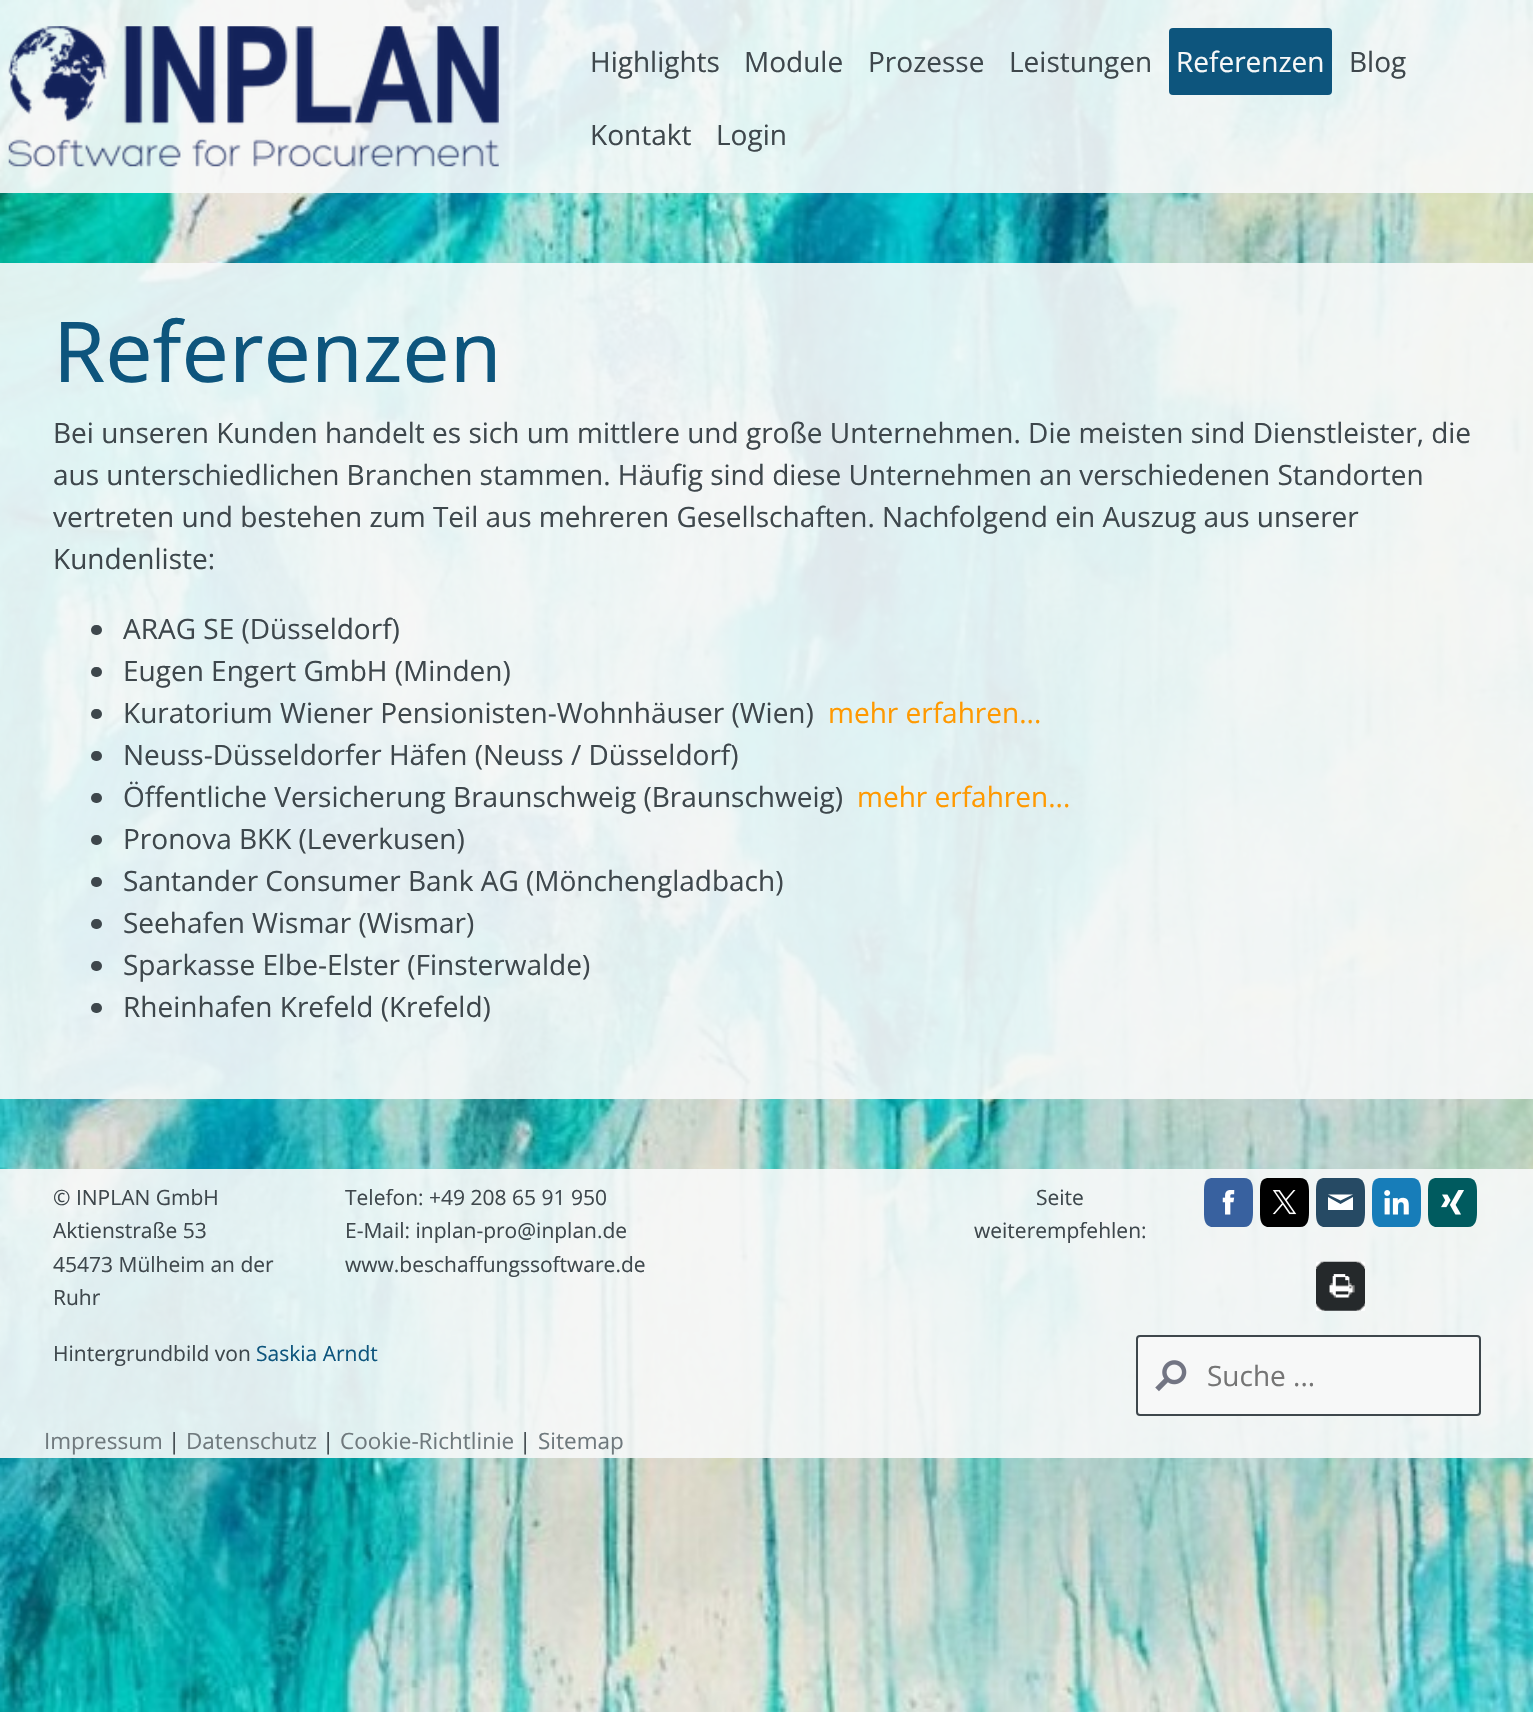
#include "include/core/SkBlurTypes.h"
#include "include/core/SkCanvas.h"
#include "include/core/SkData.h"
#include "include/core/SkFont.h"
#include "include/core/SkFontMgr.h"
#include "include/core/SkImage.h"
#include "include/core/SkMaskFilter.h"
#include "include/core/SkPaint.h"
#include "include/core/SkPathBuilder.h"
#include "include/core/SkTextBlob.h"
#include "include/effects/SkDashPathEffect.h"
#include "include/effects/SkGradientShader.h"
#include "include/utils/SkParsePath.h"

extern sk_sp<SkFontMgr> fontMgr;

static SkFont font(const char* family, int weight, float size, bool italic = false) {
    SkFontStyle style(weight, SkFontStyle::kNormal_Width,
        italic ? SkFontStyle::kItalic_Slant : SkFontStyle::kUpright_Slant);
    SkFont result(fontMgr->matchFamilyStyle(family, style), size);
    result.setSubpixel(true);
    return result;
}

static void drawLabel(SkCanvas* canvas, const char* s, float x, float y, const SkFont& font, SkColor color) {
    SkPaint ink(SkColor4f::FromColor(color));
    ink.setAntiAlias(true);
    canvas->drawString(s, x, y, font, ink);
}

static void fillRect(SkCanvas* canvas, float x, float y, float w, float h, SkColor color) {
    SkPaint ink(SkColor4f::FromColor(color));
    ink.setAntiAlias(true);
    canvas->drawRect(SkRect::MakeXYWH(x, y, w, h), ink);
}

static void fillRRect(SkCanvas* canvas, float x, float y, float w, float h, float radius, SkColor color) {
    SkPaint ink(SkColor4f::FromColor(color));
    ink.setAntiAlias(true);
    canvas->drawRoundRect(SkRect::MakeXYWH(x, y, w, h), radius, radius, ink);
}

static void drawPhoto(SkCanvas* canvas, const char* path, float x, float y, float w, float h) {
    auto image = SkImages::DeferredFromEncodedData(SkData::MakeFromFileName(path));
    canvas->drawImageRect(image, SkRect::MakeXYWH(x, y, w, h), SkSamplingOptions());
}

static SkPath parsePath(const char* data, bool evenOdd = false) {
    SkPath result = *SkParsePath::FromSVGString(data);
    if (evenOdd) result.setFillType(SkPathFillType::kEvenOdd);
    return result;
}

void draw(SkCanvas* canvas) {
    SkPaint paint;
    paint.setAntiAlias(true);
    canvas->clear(0xFFFFFFFF);
    drawPhoto(canvas, "assets/img1.png", 0, 0, 1533, 1712);
    fillRect(canvas, 0, 0, 1533, 193, 0xE6F7F8F8);
    drawPhoto(canvas, "assets/img2.png", 8, 26, 491, 141);
    SkFont font1 = font("Open Sans", 400, 28);
    drawLabel(canvas, "Highlights", 590, 72, font1, 0xFF3E474C);
    drawLabel(canvas, "Module", 744, 72, font1, 0xFF3E474C);
    drawLabel(canvas, "Prozesse", 868, 72, font1, 0xFF3E474C);
    drawLabel(canvas, "Leistungen", 1009, 72, font1, 0xFF3E474C);
    fillRRect(canvas, 1169, 28, 163, 67, 4, 0xFF0D557D);
    drawLabel(canvas, "Referenzen", 1176, 72, font1, 0xFFF7F8F8);
    drawLabel(canvas, "Blog", 1349, 72, font1, 0xFF3E474C);
    drawLabel(canvas, "Kontakt", 590, 145, font1, 0xFF3E474C);
    drawLabel(canvas, "Login", 716, 145, font1, 0xFF3E474C);
    fillRect(canvas, 0, 263, 1533, 836, 0xE6F7F8F8);
    SkFont font2 = font("Noto Sans", 400, 84);
    drawLabel(canvas, "Referenzen", 53, 382, font2, 0xFF0D557D);
    drawLabel(canvas, "Bei unseren Kunden handelt es sich um mittlere und große Unternehmen. Die meisten sind Dienstleister, die", 53, 443, font1, 0xFF3E474C);
    drawLabel(canvas, "aus unterschiedlichen Branchen stammen. Häufig sind diese Unternehmen an verschiedenen Standorten", 53, 485, font1, 0xFF3E474C);
    drawLabel(canvas, "vertreten und bestehen zum Teil aus mehreren Gesellschaften. Nachfolgend ein Auszug aus unserer", 53, 527, font1, 0xFF3E474C);
    drawLabel(canvas, "Kundenliste:", 53, 569, font1, 0xFF3E474C);
    fillRRect(canvas, 91, 625, 11, 10, 5, 0xFF3E474C);
    drawLabel(canvas, "ARAG SE (Düsseldorf)", 123, 639, font1, 0xFF3E474C);
    fillRRect(canvas, 91, 667, 11, 10, 5, 0xFF3E474C);
    drawLabel(canvas, "Eugen Engert GmbH (Minden)", 123, 681, font1, 0xFF3E474C);
    fillRRect(canvas, 91, 709, 11, 10, 5, 0xFF3E474C);
    drawLabel(canvas, "Kuratorium Wiener Pensionisten-Wohnhäuser (Wien)", 123, 723, font1, 0xFF3E474C);
    drawLabel(canvas, "mehr erfahren...", 828, 723, font1, 0xFFFF9900);
    fillRRect(canvas, 91, 751, 11, 10, 5, 0xFF3E474C);
    drawLabel(canvas, "Neuss-Düsseldorfer Häfen (Neuss / Düsseldorf)", 123, 765, font1, 0xFF3E474C);
    fillRRect(canvas, 91, 793, 11, 10, 5, 0xFF3E474C);
    drawLabel(canvas, "Öffentliche Versicherung Braunschweig (Braunschweig)", 123, 807, font1, 0xFF3E474C);
    drawLabel(canvas, "mehr erfahren...", 857, 807, font1, 0xFFFF9900);
    fillRRect(canvas, 91, 835, 11, 10, 5, 0xFF3E474C);
    drawLabel(canvas, "Pronova BKK (Leverkusen)", 123, 849, font1, 0xFF3E474C);
    fillRRect(canvas, 91, 877, 11, 10, 5, 0xFF3E474C);
    drawLabel(canvas, "Santander Consumer Bank AG (Mönchengladbach)", 123, 891, font1, 0xFF3E474C);
    fillRRect(canvas, 91, 919, 11, 10, 5, 0xFF3E474C);
    drawLabel(canvas, "Seehafen Wismar (Wismar)", 123, 933, font1, 0xFF3E474C);
    fillRRect(canvas, 91, 961, 11, 10, 5, 0xFF3E474C);
    drawLabel(canvas, "Sparkasse Elbe-Elster (Finsterwalde)", 123, 975, font1, 0xFF3E474C);
    fillRRect(canvas, 91, 1003, 11, 10, 5, 0xFF3E474C);
    drawLabel(canvas, "Rheinhafen Krefeld (Krefeld)", 123, 1017, font1, 0xFF3E474C);
    fillRect(canvas, 0, 1169, 1533, 256, 0xE6F7F8F8);
    SkFont font3 = font("Open Sans", 400, 21);
    drawLabel(canvas, "© INPLAN GmbH", 53, 1205, font3, 0xFF3E474C);
    drawLabel(canvas, "Aktienstraße 53", 53, 1238, font3, 0xFF3E474C);
    drawLabel(canvas, "45473 Mülheim an der", 53, 1272, font3, 0xFF3E474C);
    drawLabel(canvas, "Ruhr", 53, 1305, font3, 0xFF3E474C);
    drawLabel(canvas, "Telefon: +49 208 65 91 950", 345, 1205, font3, 0xFF3E474C);
    drawLabel(canvas, "E-Mail: inplan-pro@inplan.de", 345, 1238, font3, 0xFF3E474C);
    drawLabel(canvas, "www.beschaffungssoftware.de", 345, 1272, font3, 0xFF3E474C);
    drawLabel(canvas, "Seite", 1036, 1205, font3, 0xFF3E474C);
    drawLabel(canvas, "weiterempfehlen:", 974, 1238, font3, 0xFF3E474C);
    paint.setColor(0xFF38619F);
    canvas->drawPath(parsePath("M1244 1227H1211C1204 1225 1204 1218 1204 1212V1192C1204 1186 1204 1179 1211 1178H1244C1252 1178 1253 1185 1253 1192V1212C1253 1219 1252 1227 1244 1227Z"), paint);
    drawPhoto(canvas, "assets/img3.png", 1222, 1190, 13, 25);
    paint.setColor(0xFF000000);
    canvas->drawPath(parsePath("M1300 1227H1267C1260 1225 1260 1218 1260 1212V1192C1260 1186 1260 1179 1267 1178H1300C1308 1178 1309 1185 1309 1192V1212C1309 1219 1308 1227 1300 1227Z"), paint);
    drawPhoto(canvas, "assets/img4.png", 1272, 1190, 25, 25);
    paint.setColor(0xFF264A64);
    canvas->drawPath(parsePath("M1356 1227H1323C1316 1225 1316 1218 1316 1212V1192C1316 1186 1316 1179 1323 1178H1356C1364 1178 1365 1185 1365 1192V1212C1365 1219 1364 1227 1356 1227Z"), paint);
    paint.setColor(0xFFFFFFFF);
    canvas->drawPath(parsePath("M1353 1210H1328V1197L1340.5 1204L1353 1197ZM1353 1194.5H1328L1340.5 1200.5Z"), paint);
    paint.setColor(0xFF177DB9);
    canvas->drawPath(parsePath("M1412 1227H1379C1372 1225 1372 1218 1372 1212V1192C1372 1186 1372 1179 1379 1178H1412C1420 1178 1421 1185 1421 1192V1212C1421 1219 1420 1227 1412 1227Z"), paint);
    drawPhoto(canvas, "assets/img5.png", 1384, 1190, 25, 25);
    paint.setColor(0xFF005B5F);
    canvas->drawPath(parsePath("M1468 1227H1435C1428 1225 1428 1218 1428 1212V1192C1428 1186 1428 1179 1435 1178H1468C1476 1178 1477 1185 1477 1192V1212C1477 1219 1476 1227 1468 1227Z"), paint);
    drawPhoto(canvas, "assets/img6.png", 1441, 1190, 23, 25);
    drawPhoto(canvas, "assets/img7.png", 1316, 1261, 49, 50);
    drawLabel(canvas, "Hintergrundbild von", 53, 1361, font3, 0xFF3E474C);
    drawLabel(canvas, "Saskia Arndt", 256, 1361, font3, 0xFF0D557D);
    paint.setColor(0xFFF7F8F8);
    canvas->drawRoundRect(SkRect::MakeXYWH(1137, 1336, 343, 79), 3, 3, paint);
    paint.setStroke(true);
    paint.setStrokeWidth(2);
    paint.setColor(0xFF3E474C);
    canvas->drawRoundRect(SkRect::MakeXYWH(1137, 1336, 343, 79), 3, 3, paint);
    drawPhoto(canvas, "assets/img8.png", 1155, 1360, 32, 32);
    drawLabel(canvas, "Suche ...", 1207, 1386, font1, 0xFF757575);
    fillRect(canvas, 0, 1425, 1533, 33, 0xE6F7F8F8);
    SkFont font4 = font("Open Sans", 400, 22.5f);
    drawLabel(canvas, "Impressum", 44, 1449, font4, 0xFF6F797D);
    drawLabel(canvas, "|", 168, 1449, font4, 0xFF3E474C);
    drawLabel(canvas, "Datenschutz", 186, 1449, font4, 0xFF6F797D);
    drawLabel(canvas, "|", 322, 1449, font4, 0xFF3E474C);
    drawLabel(canvas, "Cookie-Richtlinie", 340, 1449, font4, 0xFF6F797D);
    drawLabel(canvas, "|", 519, 1449, font4, 0xFF3E474C);
    drawLabel(canvas, "Sitemap", 538, 1449, font4, 0xFF6F797D);
}
